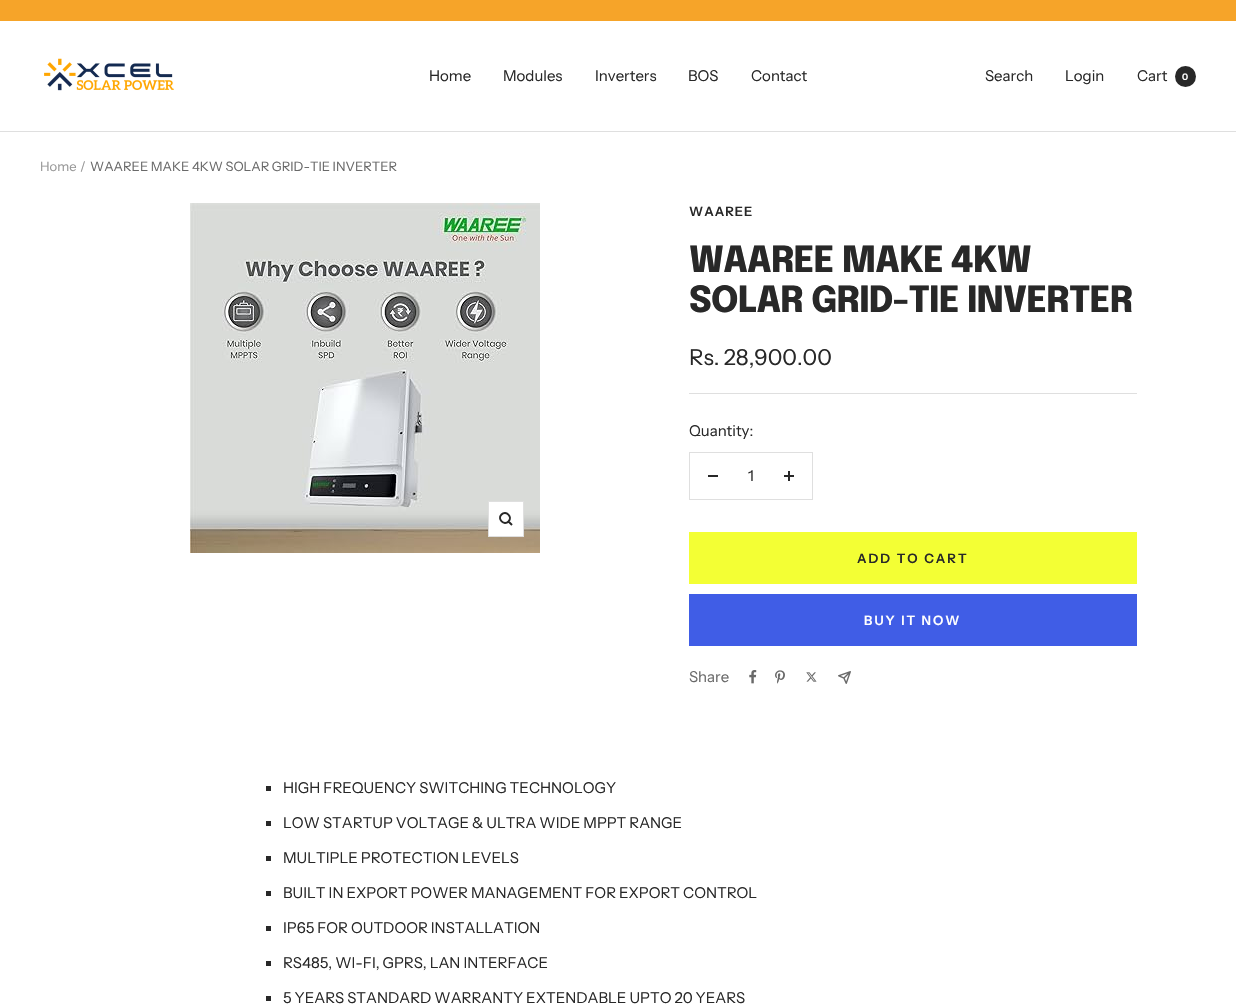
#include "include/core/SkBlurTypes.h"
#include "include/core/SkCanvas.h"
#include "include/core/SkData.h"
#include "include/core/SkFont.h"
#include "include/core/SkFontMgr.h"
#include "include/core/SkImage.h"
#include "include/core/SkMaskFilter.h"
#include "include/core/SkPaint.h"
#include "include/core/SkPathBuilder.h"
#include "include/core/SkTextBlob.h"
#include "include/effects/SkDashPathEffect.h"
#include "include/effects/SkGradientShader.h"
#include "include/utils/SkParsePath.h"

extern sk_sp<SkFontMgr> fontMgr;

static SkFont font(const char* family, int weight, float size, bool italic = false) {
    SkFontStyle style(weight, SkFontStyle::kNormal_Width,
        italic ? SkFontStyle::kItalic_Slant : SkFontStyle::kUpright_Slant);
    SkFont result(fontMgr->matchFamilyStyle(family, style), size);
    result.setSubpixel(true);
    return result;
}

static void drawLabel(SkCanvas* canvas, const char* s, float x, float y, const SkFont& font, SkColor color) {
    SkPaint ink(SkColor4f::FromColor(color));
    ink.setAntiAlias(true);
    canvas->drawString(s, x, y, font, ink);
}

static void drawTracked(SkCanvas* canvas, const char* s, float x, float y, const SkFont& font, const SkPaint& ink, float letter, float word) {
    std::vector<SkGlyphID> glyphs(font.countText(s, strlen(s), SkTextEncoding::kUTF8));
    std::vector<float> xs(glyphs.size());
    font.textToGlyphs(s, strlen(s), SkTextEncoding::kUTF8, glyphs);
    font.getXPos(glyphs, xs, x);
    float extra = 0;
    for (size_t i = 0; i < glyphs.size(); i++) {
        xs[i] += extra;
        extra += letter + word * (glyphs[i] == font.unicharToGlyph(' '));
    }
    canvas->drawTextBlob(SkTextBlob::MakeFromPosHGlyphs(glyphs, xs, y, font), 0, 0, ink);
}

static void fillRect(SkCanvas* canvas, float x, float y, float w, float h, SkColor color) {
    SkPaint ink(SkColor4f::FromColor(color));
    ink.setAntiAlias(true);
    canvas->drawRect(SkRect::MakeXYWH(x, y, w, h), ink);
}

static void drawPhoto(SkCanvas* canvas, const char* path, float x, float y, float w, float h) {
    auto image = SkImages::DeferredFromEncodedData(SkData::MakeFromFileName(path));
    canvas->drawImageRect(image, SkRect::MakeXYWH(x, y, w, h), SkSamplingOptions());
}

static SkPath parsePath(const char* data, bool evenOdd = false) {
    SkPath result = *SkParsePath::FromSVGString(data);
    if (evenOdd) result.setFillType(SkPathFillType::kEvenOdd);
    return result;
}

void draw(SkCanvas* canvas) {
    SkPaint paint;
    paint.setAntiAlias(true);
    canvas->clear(0xFFFFFFFF);
    fillRect(canvas, 0, 0, 1236, 21, 0xFFF6A429);
    fillRect(canvas, 0, 131, 1236, 1, 0xFFDFDFDF);
    drawPhoto(canvas, "assets/img1.png", 44, 58, 130, 33);
    SkFont font1 = font("Instrument Sans", 400, 15);
    drawLabel(canvas, "Home", 429, 81, font1, 0xFF282828);
    drawLabel(canvas, "Modules", 503, 81, font1, 0xFF282828);
    drawLabel(canvas, "Inverters", 595, 81, font1, 0xFF282828);
    drawLabel(canvas, "BOS", 688, 81, font1, 0xFF282828);
    drawLabel(canvas, "Contact", 751, 81, font1, 0xFF282828);
    drawLabel(canvas, "Search", 985, 81, font1, 0xFF282828);
    drawLabel(canvas, "Login", 1065, 81, font1, 0xFF282828);
    drawLabel(canvas, "Cart", 1137, 81, font1, 0xFF282828);
    paint.setColor(0xFF282828);
    canvas->drawCircle(1185.5f, 76.5f, 10.5f, paint);
    SkFont font2 = font("Instrument Sans", 600, 9);
    drawLabel(canvas, "0", 1182, 80, font2, 0xFFFFFFFF);
    SkFont font3 = font("Instrument Sans", 400, 13);
    drawLabel(canvas, "Home", 40, 171, font3, 0xFF969696);
    drawLabel(canvas, "/", 80, 171, font3, 0xFF969696);
    drawLabel(canvas, "WAAREE MAKE 4KW SOLAR GRID-TIE INVERTER", 90, 171, font3, 0xFF696969);
    drawPhoto(canvas, "assets/img2.png", 190, 203, 350, 350);
    paint.setColor(0xFFFFFFFF);
    canvas->drawRect(SkRect::MakeXYWH(488.5f, 501.5f, 35, 35), paint);
    paint.setStroke(true);
    paint.setStrokeWidth(1);
    paint.setColor(0xFFDFDFDF);
    canvas->drawRect(SkRect::MakeXYWH(488.5f, 501.5f, 35, 35), paint);
    paint.setStrokeWidth(2);
    paint.setColor(0xFF282828);
    canvas->drawPath(parsePath("M508.5 521.5C513 517 506 510 501.5 514.5C497 519 504 526 508.5 521.5ZM508.5 521.5L512 525"), paint);
    fillRect(canvas, 689, 393, 448, 1, 0xFFDFDFDF);
    SkFont font4 = font("Instrument Sans", 600, 13);
    paint.setStroke(false);
    drawTracked(canvas, "WAAREE", 689, 216, font4, paint, 1, 0);
    SkFont font5 = font("Epilogue", 800, 36);
    drawTracked(canvas, "WAAREE MAKE 4KW", 689, 272, font5, paint, -0.8f, 0);
    drawTracked(canvas, "SOLAR GRID-TIE INVERTER", 689, 312, font5, paint, -0.8f, 0);
    SkFont font6 = font("Instrument Sans", 400, 22);
    drawLabel(canvas, "Rs. 28,900.00", 689, 365, font6, 0xFF282828);
    drawLabel(canvas, "Quantity:", 689, 436, font1, 0xFF282828);
    paint.setStroke(true);
    paint.setStrokeWidth(1);
    paint.setColor(0xFFDFDFDF);
    canvas->drawRect(SkRect::MakeXYWH(689.5f, 452.5f, 123, 47), paint);
    fillRect(canvas, 708, 475, 10, 2, 0xFF282828);
    drawLabel(canvas, "1", 748, 481, font1, 0xFF282828);
    drawPhoto(canvas, "assets/img3.png", 784, 471, 10, 10);
    fillRect(canvas, 689, 532, 448, 52, 0xFFF3FF34);
    paint.setStroke(false);
    paint.setColor(0xFF282828);
    drawTracked(canvas, "ADD TO CART", 857, 563, font4, paint, 2, 0);
    fillRect(canvas, 689, 594, 448, 52, 0xFF405DE6);
    paint.setColor(0xFFFFFFFF);
    drawTracked(canvas, "BUY IT NOW", 864, 625, font4, paint, 2, 0);
    drawLabel(canvas, "Share", 689, 682, font1, 0xFF696969);
    drawPhoto(canvas, "assets/img4.png", 749, 670, 8, 14);
    drawPhoto(canvas, "assets/img5.png", 775, 670, 10, 14);
    drawPhoto(canvas, "assets/img6.png", 806, 672, 11, 10);
    drawPhoto(canvas, "assets/img7.png", 838, 671, 13, 13);
    fillRect(canvas, 266, 786, 5, 5, 0xFF282828);
    drawLabel(canvas, "HIGH FREQUENCY SWITCHING TECHNOLOGY", 283, 793, font1, 0xFF282828);
    fillRect(canvas, 266, 821, 5, 5, 0xFF282828);
    drawLabel(canvas, "LOW STARTUP VOLTAGE & ULTRA WIDE MPPT RANGE", 283, 828, font1, 0xFF282828);
    fillRect(canvas, 266, 856, 5, 5, 0xFF282828);
    drawLabel(canvas, "MULTIPLE PROTECTION LEVELS", 283, 863, font1, 0xFF282828);
    fillRect(canvas, 266, 891, 5, 5, 0xFF282828);
    drawLabel(canvas, "BUILT IN EXPORT POWER MANAGEMENT FOR EXPORT CONTROL", 283, 898, font1, 0xFF282828);
    fillRect(canvas, 266, 926, 5, 5, 0xFF282828);
    drawLabel(canvas, "IP65 FOR OUTDOOR INSTALLATION", 283, 933, font1, 0xFF282828);
    fillRect(canvas, 266, 961, 5, 5, 0xFF282828);
    drawLabel(canvas, "RS485, WI-FI, GPRS, LAN INTERFACE", 283, 968, font1, 0xFF282828);
    fillRect(canvas, 266, 996, 5, 5, 0xFF282828);
    drawLabel(canvas, "5 YEARS STANDARD WARRANTY EXTENDABLE UPTO 20 YEARS", 283, 1003, font1, 0xFF282828);
}
